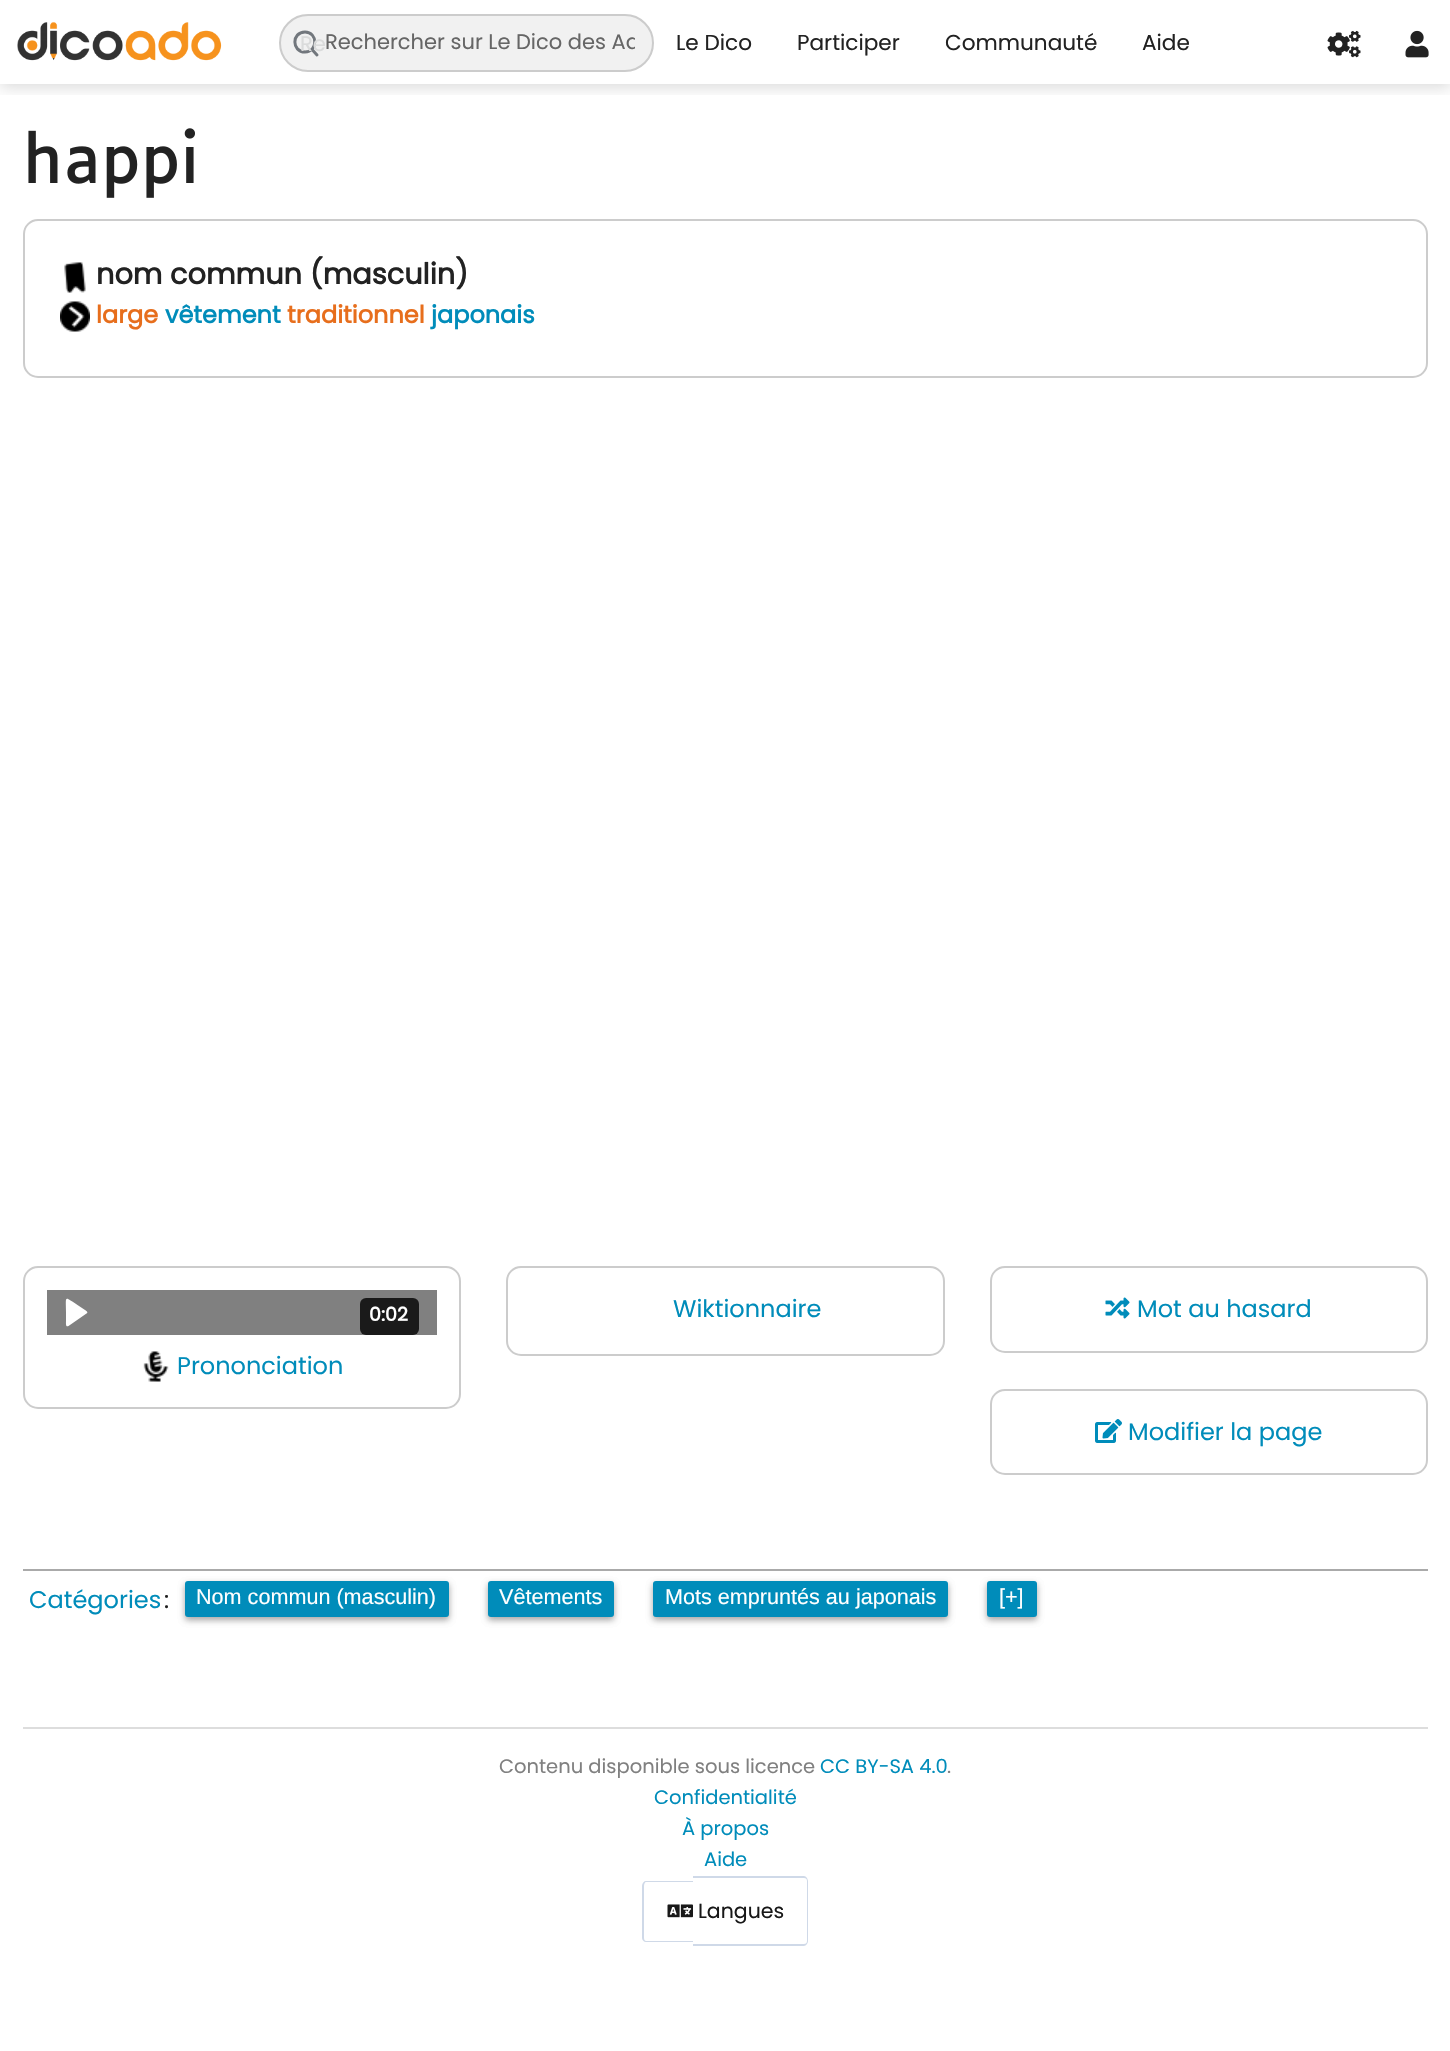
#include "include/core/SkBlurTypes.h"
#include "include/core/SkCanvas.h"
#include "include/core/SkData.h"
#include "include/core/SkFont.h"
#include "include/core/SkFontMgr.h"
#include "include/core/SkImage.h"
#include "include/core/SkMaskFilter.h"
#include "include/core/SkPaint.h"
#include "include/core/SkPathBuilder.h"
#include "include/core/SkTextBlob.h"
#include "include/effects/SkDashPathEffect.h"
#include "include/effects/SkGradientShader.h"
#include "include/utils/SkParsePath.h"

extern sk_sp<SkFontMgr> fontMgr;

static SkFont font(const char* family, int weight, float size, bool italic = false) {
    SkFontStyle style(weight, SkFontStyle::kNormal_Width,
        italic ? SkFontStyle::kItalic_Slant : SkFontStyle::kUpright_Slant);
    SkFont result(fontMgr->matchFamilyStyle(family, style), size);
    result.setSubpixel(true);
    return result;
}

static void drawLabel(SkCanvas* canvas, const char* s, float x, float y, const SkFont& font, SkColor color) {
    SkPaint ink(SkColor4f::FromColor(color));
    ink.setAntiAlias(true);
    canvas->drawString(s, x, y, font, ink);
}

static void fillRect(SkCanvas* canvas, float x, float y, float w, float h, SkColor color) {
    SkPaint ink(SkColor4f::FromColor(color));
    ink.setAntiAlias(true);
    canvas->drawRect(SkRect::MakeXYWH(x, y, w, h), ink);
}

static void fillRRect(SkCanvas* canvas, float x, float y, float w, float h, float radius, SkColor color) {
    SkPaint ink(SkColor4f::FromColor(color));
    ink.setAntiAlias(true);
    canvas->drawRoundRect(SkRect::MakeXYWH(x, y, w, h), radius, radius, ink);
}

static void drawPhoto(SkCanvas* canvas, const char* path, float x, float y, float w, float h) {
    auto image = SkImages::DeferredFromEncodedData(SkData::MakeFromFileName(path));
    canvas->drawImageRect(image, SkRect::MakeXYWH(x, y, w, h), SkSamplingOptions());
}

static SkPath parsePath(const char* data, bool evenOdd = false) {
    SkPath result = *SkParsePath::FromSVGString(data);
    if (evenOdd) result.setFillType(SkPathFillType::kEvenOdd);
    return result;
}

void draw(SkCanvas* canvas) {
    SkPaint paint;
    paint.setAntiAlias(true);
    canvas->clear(0xFFFFFFFF);
    canvas->save();
    canvas->clipRect(SkRect::MakeXYWH(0, 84, 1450, 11));
    paint.setColor(0x26000000);
    paint.setMaskFilter(SkMaskFilter::MakeBlur(kNormal_SkBlurStyle, 7.5f));
    canvas->drawRect(SkRect::MakeXYWH(0, 3, 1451, 84), paint);
    paint.setMaskFilter(nullptr);
    canvas->restore();
    drawPhoto(canvas, "assets/img1.png", 17, 22, 205, 39);
    paint.setColor(0xFFF1F1F1);
    canvas->drawRoundRect(SkRect::MakeXYWH(280, 15, 373, 56), 28, 28, paint);
    paint.setStroke(true);
    paint.setStrokeWidth(2);
    paint.setColor(0xFFCCCCCC);
    canvas->drawRoundRect(SkRect::MakeXYWH(280, 15, 373, 56), 28, 28, paint);
    paint.setStrokeWidth(3);
    paint.setStrokeCap(SkPaint::kRound_Cap);
    paint.setStrokeJoin(SkPaint::kRound_Join);
    paint.setColor(0xFF72777D);
    canvas->drawPath(parsePath("M305 52C318 52 318 32 305 32C291.5 32 291.5 52 305 52ZM317 55L312 49.5"), paint);
    SkFont font1 = font("Poppins", 400, 21);
    drawLabel(canvas, "Re", 300, 51, font1, 0xFFDADBDB);
    canvas->save();
    canvas->clipRect(SkRect::MakeXYWH(326, 27, 309, 32));
    drawLabel(canvas, "Rechercher sur Le Dico des Ad", 325, 49, font1, 0xFF666666);
    canvas->restore();
    SkFont font2 = font("Poppins", 400, 21.6f);
    drawLabel(canvas, "Le Dico", 676, 50, font2, 0xFF222222);
    drawLabel(canvas, "Participer", 797, 50, font2, 0xFF222222);
    drawLabel(canvas, "Communauté", 945, 50, font2, 0xFF222222);
    drawLabel(canvas, "Aide", 1142, 50, font2, 0xFF222222);
    drawPhoto(canvas, "assets/img2.png", 1327, 30, 34, 28);
    drawPhoto(canvas, "assets/img3.png", 1405, 30, 24, 28);
    drawPhoto(canvas, "assets/img4.png", 28, 128, 167, 70);
    paint.setStrokeWidth(2);
    paint.setStrokeCap(SkPaint::kButt_Cap);
    paint.setStrokeJoin(SkPaint::kMiter_Join);
    paint.setColor(0xFFCCCCCC);
    canvas->drawRoundRect(SkRect::MakeXYWH(24, 220, 1403, 157), 14, 14, paint);
    drawPhoto(canvas, "assets/img5.png", 64, 262, 22, 31);
    SkFont font3 = font("Poppins", 700, 28.75f);
    drawLabel(canvas, "nom commun (masculin)", 96, 284, font3, 0xFF222222);
    drawPhoto(canvas, "assets/img6.png", 60, 301, 30, 31);
    SkFont font4 = font("Poppins", 700, 24);
    drawLabel(canvas, "large", 96, 323, font4, 0xFFE76E1C);
    drawLabel(canvas, "vêtement", 165, 323, font4, 0xFF008CBA);
    drawLabel(canvas, "traditionnel", 287, 323, font4, 0xFFE76E1C);
    drawLabel(canvas, "japonais", 431, 323, font4, 0xFF008CBA);
    canvas->drawRoundRect(SkRect::MakeXYWH(24, 1267, 436, 141), 14, 14, paint);
    fillRect(canvas, 47, 1290, 390, 45, 0xFF808080);
    paint.setStroke(false);
    paint.setColor(0xFFFFFFFF);
    canvas->drawPath(parsePath("M68.5 1326C65.5 1327.5 66 1323.5 66 1320.5V1312.5C66 1295.5 63.5 1296 77.5 1305L83.5 1309C84 1309.5 89.5 1312 86.5 1313.5Z"), paint);
    fillRRect(canvas, 360, 1298, 59, 37, 6, 0xFF1A1A1A);
    SkFont font5 = font("Poppins", 700, 19);
    drawLabel(canvas, "0:02", 369, 1321, font5, 0xFFFFFFFF);
    drawPhoto(canvas, "assets/img7.png", 143, 1351, 26, 31);
    SkFont font6 = font("Poppins", 400, 24);
    drawLabel(canvas, "Prononciation", 177, 1374, font6, 0xFF008CBA);
    paint.setStroke(true);
    paint.setColor(0xFFCCCCCC);
    canvas->drawRoundRect(SkRect::MakeXYWH(507, 1267, 437, 88), 14, 14, paint);
    drawLabel(canvas, "Wiktionnaire", 673, 1317, font6, 0xFF008CBA);
    canvas->drawRoundRect(SkRect::MakeXYWH(991, 1267, 436, 85), 14, 14, paint);
    drawPhoto(canvas, "assets/img8.png", 1105, 1297, 25, 22);
    drawLabel(canvas, "Mot au hasard", 1137, 1317, font6, 0xFF008CBA);
    canvas->drawRoundRect(SkRect::MakeXYWH(991, 1390, 436, 84), 14, 14, paint);
    drawPhoto(canvas, "assets/img9.png", 1095, 1419, 27, 24);
    drawLabel(canvas, "Modifier la page", 1128, 1440, font6, 0xFF008CBA);
    fillRect(canvas, 23, 1569, 1405, 2, 0xFFAAAAAA);
    drawLabel(canvas, "Catégories", 29, 1608, font6, 0xFF008CBA);
    drawLabel(canvas, ":", 164, 1608, font6, 0xFF222222);
    paint.setStroke(false);
    paint.setColor(0x3D000000);
    paint.setMaskFilter(SkMaskFilter::MakeBlur(kNormal_SkBlurStyle, 3));
    canvas->drawRoundRect(SkRect::MakeXYWH(185, 1584, 264, 36), 3, 3, paint);
    paint.setMaskFilter(nullptr);
    paint.setColor(0x24000000);
    paint.setMaskFilter(SkMaskFilter::MakeBlur(kNormal_SkBlurStyle, 3));
    canvas->drawRoundRect(SkRect::MakeXYWH(185, 1584, 264, 36), 3, 3, paint);
    paint.setMaskFilter(nullptr);
    fillRRect(canvas, 185, 1581, 264, 36, 3, 0xFF008CBA);
    SkFont font7 = font("Liberation Sans", 400, 21.6f);
    drawLabel(canvas, "Nom commun (masculin)", 196, 1604, font7, 0xFFFFFFFF);
    paint.setColor(0x3D000000);
    paint.setMaskFilter(SkMaskFilter::MakeBlur(kNormal_SkBlurStyle, 3));
    canvas->drawRoundRect(SkRect::MakeXYWH(488, 1584, 126, 36), 3, 3, paint);
    paint.setMaskFilter(nullptr);
    paint.setColor(0x24000000);
    paint.setMaskFilter(SkMaskFilter::MakeBlur(kNormal_SkBlurStyle, 3));
    canvas->drawRoundRect(SkRect::MakeXYWH(488, 1584, 126, 36), 3, 3, paint);
    paint.setMaskFilter(nullptr);
    fillRRect(canvas, 488, 1581, 126, 36, 3, 0xFF008CBA);
    drawLabel(canvas, "Vêtements", 499, 1604, font7, 0xFFFFFFFF);
    paint.setColor(0x3D000000);
    paint.setMaskFilter(SkMaskFilter::MakeBlur(kNormal_SkBlurStyle, 3));
    canvas->drawRoundRect(SkRect::MakeXYWH(653, 1584, 295, 36), 3, 3, paint);
    paint.setMaskFilter(nullptr);
    paint.setColor(0x24000000);
    paint.setMaskFilter(SkMaskFilter::MakeBlur(kNormal_SkBlurStyle, 3));
    canvas->drawRoundRect(SkRect::MakeXYWH(653, 1584, 295, 36), 3, 3, paint);
    paint.setMaskFilter(nullptr);
    fillRRect(canvas, 653, 1581, 295, 36, 3, 0xFF008CBA);
    drawLabel(canvas, "Mots empruntés au japonais", 665, 1604, font7, 0xFFFFFFFF);
    paint.setColor(0x3D000000);
    paint.setMaskFilter(SkMaskFilter::MakeBlur(kNormal_SkBlurStyle, 3));
    canvas->drawRoundRect(SkRect::MakeXYWH(987, 1584, 50, 36), 3, 3, paint);
    paint.setMaskFilter(nullptr);
    paint.setColor(0x24000000);
    paint.setMaskFilter(SkMaskFilter::MakeBlur(kNormal_SkBlurStyle, 3));
    canvas->drawRoundRect(SkRect::MakeXYWH(987, 1584, 50, 36), 3, 3, paint);
    paint.setMaskFilter(nullptr);
    fillRRect(canvas, 987, 1581, 50, 36, 3, 0xFF008CBA);
    drawLabel(canvas, "[+]", 999, 1604, font7, 0xFFFFFFFF);
    fillRect(canvas, 23, 1727, 1405, 2, 0xFFDDDDDD);
    SkFont font8 = font("Poppins", 400, 19.5f);
    drawLabel(canvas, "Contenu disponible sous licence", 499, 1773, font8, 0xFF808080);
    drawLabel(canvas, "CC BY-SA 4.0", 820, 1773, font8, 0xFF008CBA);
    drawLabel(canvas, ".", 947, 1773, font8, 0xFF808080);
    drawLabel(canvas, "Confidentialité", 654, 1804, font8, 0xFF008CBA);
    drawLabel(canvas, "À propos", 682, 1835, font8, 0xFF008CBA);
    drawLabel(canvas, "Aide", 704, 1866, font8, 0xFF008CBA);
    paint.setColor(0xFFCFD9E8);
    canvas->drawPath(parsePath("M646 1881H693V1942H646C644 1942 642 1940 642 1938V1886C642 1883 644 1881 646 1881ZM646 1882H693V1941H646C645 1941 644 1940 644 1938V1886C644 1884 645 1882 646 1882Z", true), paint);
    canvas->drawPath(parsePath("M693 1876H804C806 1876 808 1879 808 1881V1941C808 1943 806 1946 804 1946H693ZM693 1878H804C806 1878 807 1879 807 1881V1941C807 1943 806 1944 804 1944H693Z", true), paint);
    drawPhoto(canvas, "assets/img10.png", 667, 1904, 26, 14);
    SkFont font9 = font("Poppins", 400, 20.5f);
    drawLabel(canvas, "Langues", 698, 1918, font9, 0xFF181818);
}
